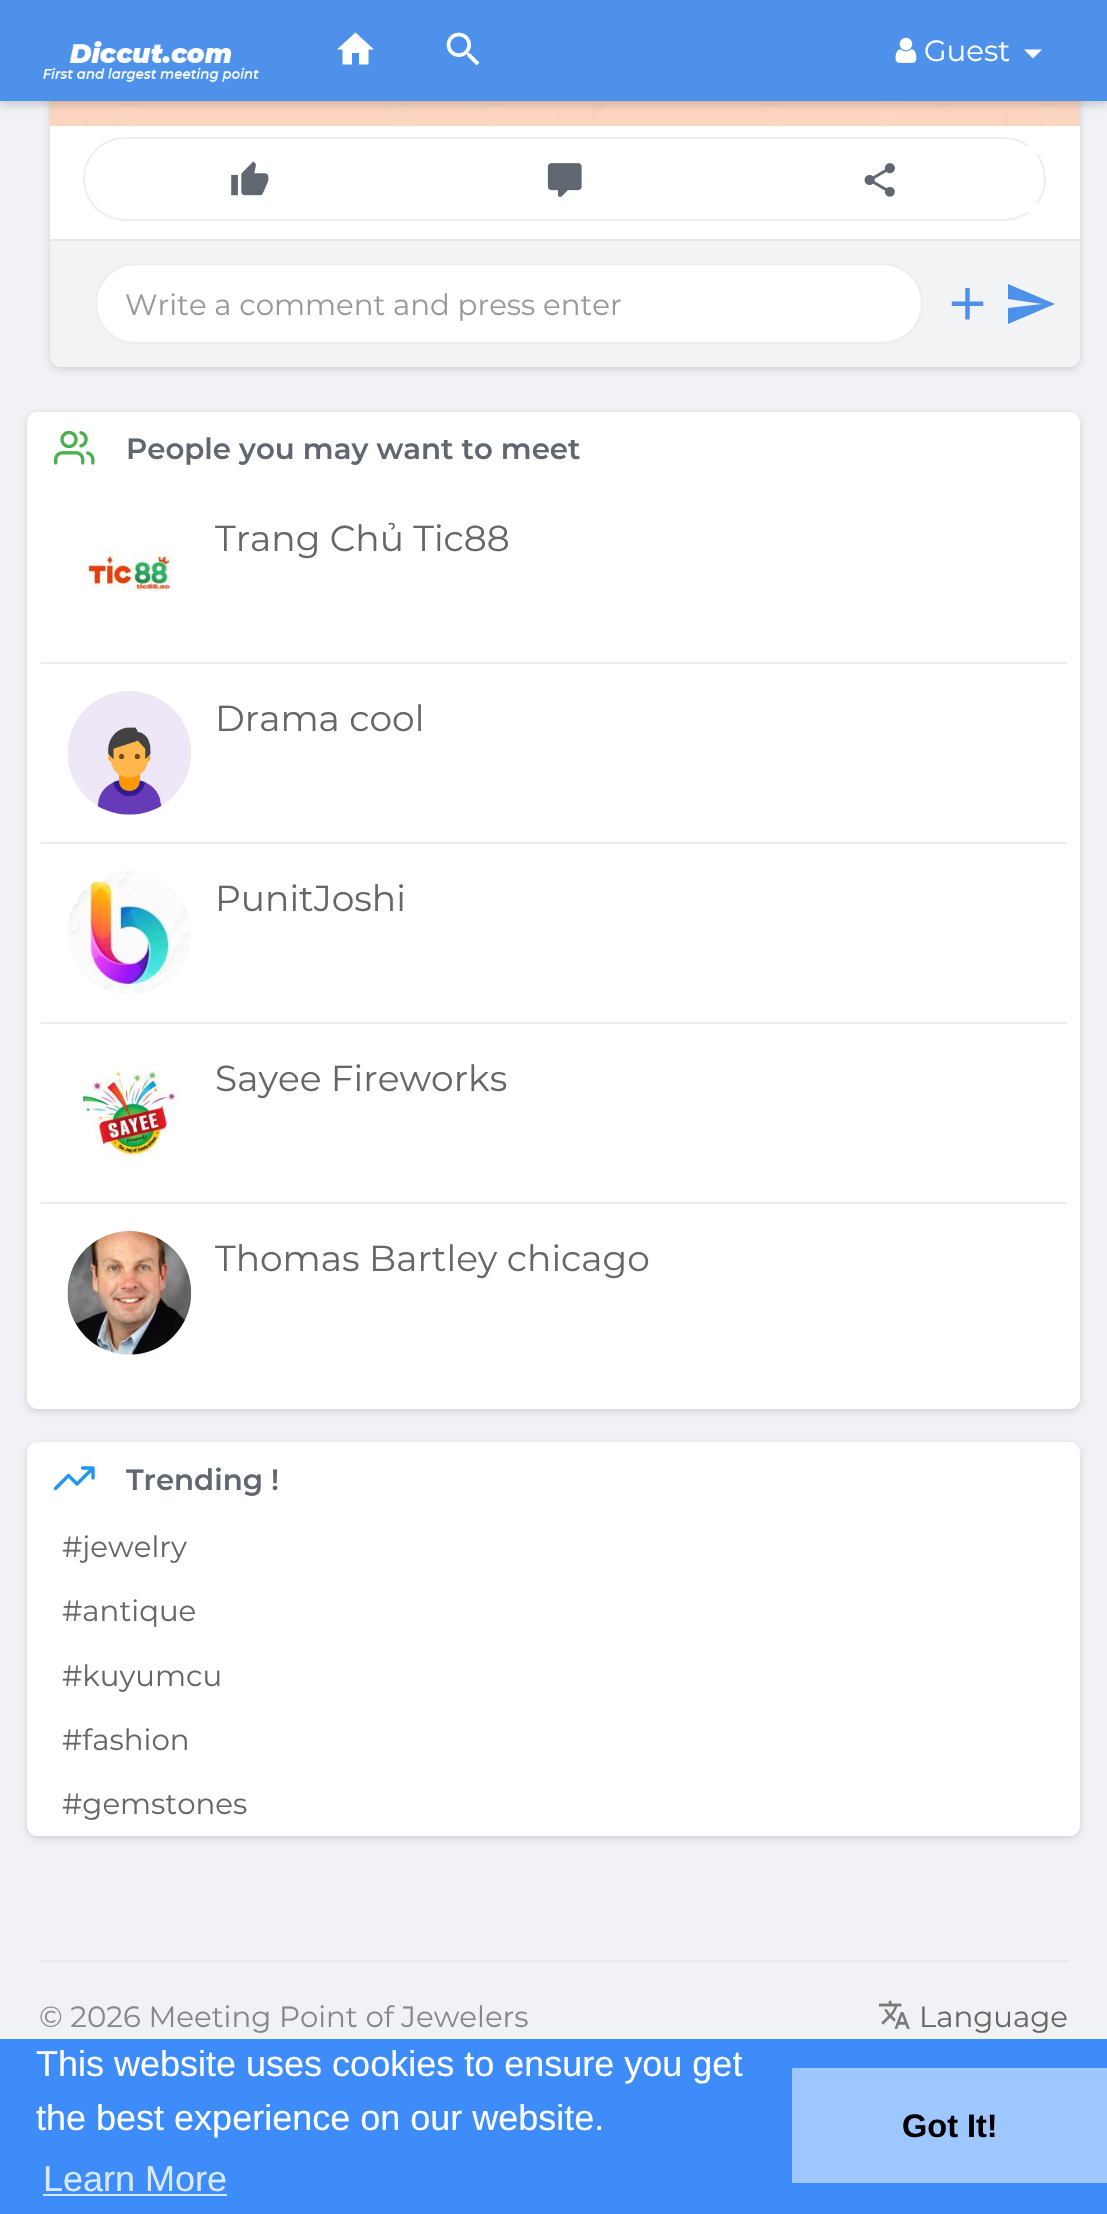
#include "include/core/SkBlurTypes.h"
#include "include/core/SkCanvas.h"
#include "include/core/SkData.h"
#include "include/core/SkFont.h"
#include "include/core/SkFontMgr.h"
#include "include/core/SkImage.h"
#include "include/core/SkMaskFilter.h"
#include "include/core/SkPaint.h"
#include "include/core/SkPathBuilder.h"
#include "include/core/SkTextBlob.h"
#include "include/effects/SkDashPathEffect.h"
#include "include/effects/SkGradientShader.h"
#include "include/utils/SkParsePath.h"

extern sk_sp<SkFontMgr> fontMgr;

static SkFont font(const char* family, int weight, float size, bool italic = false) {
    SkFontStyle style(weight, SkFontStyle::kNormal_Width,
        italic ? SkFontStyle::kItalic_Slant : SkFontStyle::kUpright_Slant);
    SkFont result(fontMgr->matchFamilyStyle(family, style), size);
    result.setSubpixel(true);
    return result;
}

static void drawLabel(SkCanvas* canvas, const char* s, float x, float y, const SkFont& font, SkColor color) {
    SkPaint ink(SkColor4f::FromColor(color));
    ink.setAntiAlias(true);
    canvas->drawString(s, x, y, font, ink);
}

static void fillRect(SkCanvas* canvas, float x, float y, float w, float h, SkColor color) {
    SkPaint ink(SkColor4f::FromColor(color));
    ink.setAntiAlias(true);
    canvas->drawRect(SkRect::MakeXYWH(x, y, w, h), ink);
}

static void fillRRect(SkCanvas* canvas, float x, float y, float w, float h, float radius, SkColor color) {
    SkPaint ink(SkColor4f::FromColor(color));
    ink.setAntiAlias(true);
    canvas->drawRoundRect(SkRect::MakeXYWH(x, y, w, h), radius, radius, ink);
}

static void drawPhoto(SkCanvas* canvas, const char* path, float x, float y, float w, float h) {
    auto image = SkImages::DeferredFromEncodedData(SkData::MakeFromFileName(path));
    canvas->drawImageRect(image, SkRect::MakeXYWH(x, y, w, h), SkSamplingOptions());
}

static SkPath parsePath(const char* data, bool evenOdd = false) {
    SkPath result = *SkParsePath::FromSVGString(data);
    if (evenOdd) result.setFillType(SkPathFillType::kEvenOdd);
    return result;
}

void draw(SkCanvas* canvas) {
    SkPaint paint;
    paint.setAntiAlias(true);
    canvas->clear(0xFFF0F2F5);
    paint.setColor(0x26000000);
    paint.setMaskFilter(SkMaskFilter::MakeBlur(kNormal_SkBlurStyle, 3.5f));
    canvas->drawRoundRect(SkRect::MakeXYWH(50, -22, 1030, 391), 11, 11, paint);
    paint.setMaskFilter(nullptr);
    fillRRect(canvas, 50, -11, 1030, 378, 11, 0xFFFFFFFF);
    drawPhoto(canvas, "assets/img4.png", 49, 101, 1031, 26);
    paint.setColor(0x33000000);
    paint.setMaskFilter(SkMaskFilter::MakeBlur(kNormal_SkBlurStyle, 4.5f));
    canvas->drawRect(SkRect::MakeXYWH(0, 2, 1107, 102), paint);
    paint.setMaskFilter(nullptr);
    fillRect(canvas, 0, 0, 1107, 101, 0xFF4D91EA);
    drawPhoto(canvas, "assets/img1.png", 43, 41, 216, 41);
    paint.setColor(0xFFFFFFFF);
    canvas->drawPath(parsePath("M352 64.5V53H359V64.5H368.5V49.5H374L355.5 32.5L337 49.5H342.5V64.5Z"), paint);
    drawPhoto(canvas, "assets/img2.png", 446, 32, 34, 34);
    drawPhoto(canvas, "assets/img3.png", 895, 37, 22, 26);
    SkFont font1 = font("Montserrat", 400, 29.25f);
    drawLabel(canvas, "Guest", 924, 61, font1, 0xFFFFFFFF);
    canvas->drawPath(parsePath("M1024 49.5H1042L1033 58.5Z"), paint);
    paint.setStroke(true);
    paint.setStrokeWidth(2);
    paint.setColor(0xFFEFEFEF);
    canvas->drawRoundRect(SkRect::MakeXYWH(84, 138, 961, 82), 41, 41, paint);
    drawPhoto(canvas, "assets/img5.png", 231, 161, 38, 35);
    drawPhoto(canvas, "assets/img6.png", 547, 163, 35, 34);
    fillRRect(canvas, 722, 146, 315, 66, 5, 0xFFFFFFFF);
    drawPhoto(canvas, "assets/img7.png", 864, 163, 31, 34);
    paint.setStroke(false);
    paint.setColor(0xFFF2F3F5);
    canvas->drawPath(parsePath("M50 239H1080V356C1080 362 1075 367 1069 367H61C55 367 50 362 50 356Z"), paint);
    fillRect(canvas, 50, 239, 1030, 2, 0xFFE6E6E6);
    paint.setColor(0xFFFFFFFF);
    canvas->drawRoundRect(SkRect::MakeXYWH(96, 264, 826, 79), 39.5f, 39.5f, paint);
    paint.setStroke(true);
    paint.setColor(0xFFEDEDED);
    canvas->drawRoundRect(SkRect::MakeXYWH(96, 264, 826, 79), 39.5f, 39.5f, paint);
    drawLabel(canvas, "Write a comment and press enter", 125, 315, font1, 0xFF999999);
    drawPhoto(canvas, "assets/img8.png", 951, 288, 33, 32);
    paint.setStroke(false);
    paint.setColor(0xFF4D91EA);
    canvas->drawPath(parsePath("M1008 324L1055 304L1008 284V299L1042 304L1008 308Z"), paint);
    paint.setColor(0x26000000);
    paint.setMaskFilter(SkMaskFilter::MakeBlur(kNormal_SkBlurStyle, 3.5f));
    canvas->drawRoundRect(SkRect::MakeXYWH(27, 414, 1053, 997), 11, 11, paint);
    paint.setMaskFilter(nullptr);
    fillRRect(canvas, 27, 412, 1053, 997, 11, 0xFFFFFFFF);
    paint.setColor(0xFFFFFFFF);
    canvas->drawPath(parsePath("M38 412H1069C1075 412 1080 417 1080 423V484H27V423C27 417 32 412 38 412Z"), paint);
    drawPhoto(canvas, "assets/img9.png", 54, 430, 41, 35);
    SkFont font2 = font("Montserrat", 600, 29.25f);
    drawLabel(canvas, "People you may want to meet", 126, 459, font2, 0xFF616770);
    fillRect(canvas, 41, 662, 1026, 2, 0xFFEBEBEB);
    SkFont font3 = font("Montserrat", 400, 36);
    drawLabel(canvas, "Trang Chủ Tic88", 215, 551, font3, 0xFF666666);
    drawPhoto(canvas, "assets/img10.png", 80, 550, 94, 41);
    fillRect(canvas, 41, 842, 1026, 2, 0xFFEBEBEB);
    drawPhoto(canvas, "assets/img11.png", 67, 691, 124, 124);
    drawLabel(canvas, "Drama cool", 215, 731, font3, 0xFF666666);
    fillRect(canvas, 41, 1022, 1026, 2, 0xFFEBEBEB);
    drawPhoto(canvas, "assets/img12.png", 68, 871, 123, 123);
    drawLabel(canvas, "PunitJoshi", 215, 911, font3, 0xFF666666);
    fillRect(canvas, 41, 1202, 1026, 2, 0xFFEBEBEB);
    drawPhoto(canvas, "assets/img13.png", 80, 1064, 99, 93);
    drawLabel(canvas, "Sayee Fireworks", 215, 1091, font3, 0xFF666666);
    drawPhoto(canvas, "assets/img14.png", 67, 1231, 125, 124);
    drawLabel(canvas, "Thomas Bartley chicago", 215, 1271, font3, 0xFF666666);
    paint.setColor(0x26000000);
    paint.setMaskFilter(SkMaskFilter::MakeBlur(kNormal_SkBlurStyle, 3.5f));
    canvas->drawRoundRect(SkRect::MakeXYWH(27, 1445, 1053, 393), 11, 11, paint);
    paint.setMaskFilter(nullptr);
    fillRRect(canvas, 27, 1442, 1053, 394, 11, 0xFFFFFFFF);
    paint.setColor(0xFFFFFFFF);
    canvas->drawPath(parsePath("M38 1442H1069C1075 1442 1080 1447 1080 1453V1514H27V1453C27 1447 32 1442 38 1442Z"), paint);
    paint.setStroke(true);
    paint.setStrokeWidth(3.4f);
    paint.setStrokeCap(SkPaint::kRound_Cap);
    paint.setStrokeJoin(SkPaint::kRound_Join);
    paint.setColor(0xFF2196F3);
    canvas->drawPath(parsePath("M93 1468L77 1484L68.5 1475.5L55.5 1488.5M82.5 1468H93V1478"), paint);
    drawLabel(canvas, "Trending !", 126, 1490, font2, 0xFF616770);
    drawLabel(canvas, "#jewelry", 62, 1557, font1, 0xFF666666);
    drawLabel(canvas, "#antique", 62, 1621, font1, 0xFF666666);
    drawLabel(canvas, "#kuyumcu", 62, 1686, font1, 0xFF666666);
    drawLabel(canvas, "#fashion", 62, 1750, font1, 0xFF666666);
    paint.setStroke(false);
    paint.setColor(0xFFFFFFFF);
    canvas->drawPath(parsePath("M27 1771H1080V1825C1080 1831 1075 1836 1069 1836H38C32 1836 27 1831 27 1825Z"), paint);
    drawLabel(canvas, "#gemstones", 62, 1814, font1, 0xFF666666);
    fillRect(canvas, 38, 1960, 1031, 2, 0xFFE9E9E9);
    drawLabel(canvas, "© 2026 Meeting Point of Jewelers", 39, 2027, font1, 0xFF888888);
    drawPhoto(canvas, "assets/img15.png", 878, 2000, 32, 29);
    drawLabel(canvas, "Language", 919, 2027, font1, 0xFF666666);
    fillRect(canvas, 0, 2039, 1107, 175, 0xFF3D8CFA);
    SkFont font4 = font("Liberation Sans", 400, 36);
    drawLabel(canvas, "This website uses cookies to ensure you get", 36, 2076, font4, 0xFFFFFFFF);
    drawLabel(canvas, "the best experience on our website.", 36, 2130, font4, 0xFFFFFFFF);
    drawLabel(canvas, "Learn More", 43, 2191, font4, 0xFFD8E8FE);
    fillRect(canvas, 43, 2194, 184, 2, 0xFFD8E8FE);
    fillRect(canvas, 792, 2068, 315, 115, 0xFF9FC7FF);
    SkFont font5 = font("Liberation Sans", 700, 32.5f);
    drawLabel(canvas, "Got It!", 902, 2137, font5, 0xFF000000);
}
